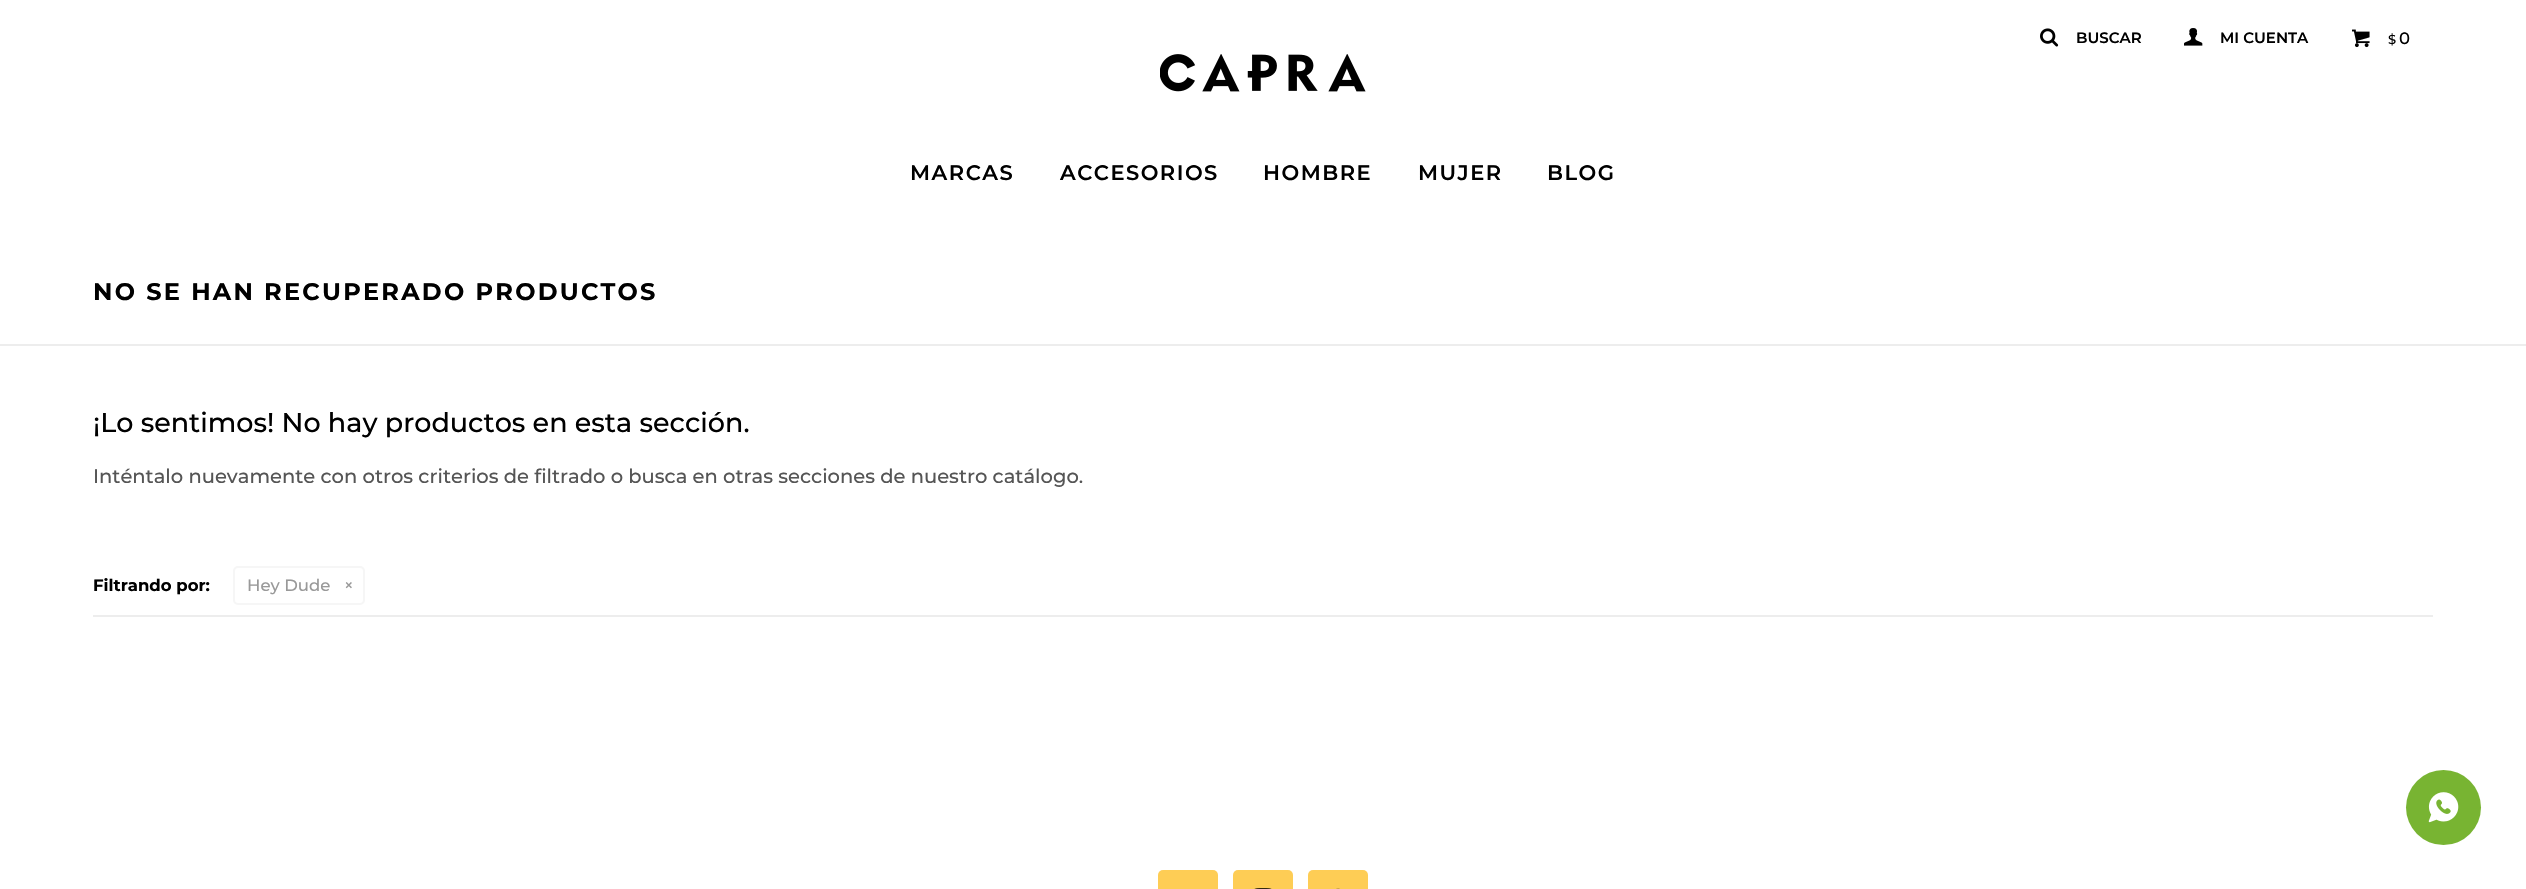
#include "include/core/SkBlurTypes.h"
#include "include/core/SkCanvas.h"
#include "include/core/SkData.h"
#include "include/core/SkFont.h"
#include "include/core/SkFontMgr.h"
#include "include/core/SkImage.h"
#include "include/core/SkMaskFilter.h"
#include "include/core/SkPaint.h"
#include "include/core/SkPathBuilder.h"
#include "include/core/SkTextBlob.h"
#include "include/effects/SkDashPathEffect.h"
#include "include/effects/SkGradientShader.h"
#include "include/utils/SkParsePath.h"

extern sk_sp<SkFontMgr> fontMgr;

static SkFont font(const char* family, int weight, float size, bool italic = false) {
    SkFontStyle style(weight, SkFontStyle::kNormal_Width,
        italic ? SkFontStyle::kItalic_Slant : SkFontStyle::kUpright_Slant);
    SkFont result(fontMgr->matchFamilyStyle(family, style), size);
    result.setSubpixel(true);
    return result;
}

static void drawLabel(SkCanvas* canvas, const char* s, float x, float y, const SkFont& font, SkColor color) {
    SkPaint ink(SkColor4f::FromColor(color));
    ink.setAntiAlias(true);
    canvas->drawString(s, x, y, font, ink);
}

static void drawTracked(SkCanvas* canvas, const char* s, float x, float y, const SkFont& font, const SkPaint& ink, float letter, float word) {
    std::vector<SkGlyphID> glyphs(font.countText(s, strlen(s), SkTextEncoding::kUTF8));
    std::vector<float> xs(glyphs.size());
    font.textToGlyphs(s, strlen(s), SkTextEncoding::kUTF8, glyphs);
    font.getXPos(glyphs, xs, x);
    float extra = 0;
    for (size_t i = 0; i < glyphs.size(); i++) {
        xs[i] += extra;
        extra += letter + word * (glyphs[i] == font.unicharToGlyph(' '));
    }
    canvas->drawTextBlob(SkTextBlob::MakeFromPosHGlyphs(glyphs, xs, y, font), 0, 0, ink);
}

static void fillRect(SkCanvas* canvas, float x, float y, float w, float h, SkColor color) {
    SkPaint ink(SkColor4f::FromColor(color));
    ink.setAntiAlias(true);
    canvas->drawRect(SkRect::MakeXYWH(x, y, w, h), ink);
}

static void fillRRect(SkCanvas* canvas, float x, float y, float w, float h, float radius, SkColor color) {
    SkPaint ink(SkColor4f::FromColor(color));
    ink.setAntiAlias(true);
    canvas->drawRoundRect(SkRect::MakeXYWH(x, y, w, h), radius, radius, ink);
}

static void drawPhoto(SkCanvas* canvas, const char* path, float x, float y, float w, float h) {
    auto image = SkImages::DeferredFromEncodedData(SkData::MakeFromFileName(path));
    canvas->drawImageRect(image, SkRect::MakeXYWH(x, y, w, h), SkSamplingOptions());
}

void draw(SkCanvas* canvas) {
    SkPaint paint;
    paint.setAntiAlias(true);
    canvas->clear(0xFFFFFFFF);
    drawPhoto(canvas, "assets/img1.png", 2040, 28, 19, 19);
    SkFont font1 = font("Montserrat", 600, 15);
    drawLabel(canvas, "BUSCAR", 2076, 43, font1, 0xFF000000);
    drawPhoto(canvas, "assets/img2.png", 2184, 28, 19, 18);
    drawLabel(canvas, "MI CUENTA", 2220, 43, font1, 0xFF000000);
    drawPhoto(canvas, "assets/img3.png", 2352, 29, 18, 19);
    SkFont font2 = font("Montserrat", 500, 13);
    drawLabel(canvas, "$", 2388, 44, font2, 0xFF000000);
    SkFont font3 = font("Montserrat", 500, 16.5f);
    drawLabel(canvas, "0", 2399, 44, font3, 0xFF000000);
    drawPhoto(canvas, "assets/img4.png", 1160, 54, 206, 38);
    SkFont font4 = font("Montserrat", 600, 21);
    paint.setColor(0xFF000000);
    drawTracked(canvas, "MARCAS", 910, 180, font4, paint, 1.5f, 0);
    drawTracked(canvas, "ACCESORIOS", 1060, 180, font4, paint, 1.5f, 0);
    drawTracked(canvas, "HOMBRE", 1263, 180, font4, paint, 1.5f, 0);
    drawTracked(canvas, "MUJER", 1418, 180, font4, paint, 1.5f, 0);
    drawTracked(canvas, "BLOG", 1547, 180, font4, paint, 1.5f, 0);
    SkFont font5 = font("Montserrat", 700, 24);
    drawTracked(canvas, "NO SE HAN RECUPERADO PRODUCTOS", 93, 300, font5, paint, 2.25f, 0);
    fillRect(canvas, 0, 344, 2526, 2, 0xFFEDEDED);
    SkFont font6 = font("Montserrat", 500, 27);
    drawLabel(canvas, "¡Lo sentimos! No hay productos en esta sección.", 93, 432, font6, 0xFF000000);
    SkFont font7 = font("Montserrat", 500, 19.5f);
    drawLabel(canvas, "Inténtalo nuevamente con otros criterios de filtrado o busca en otras secciones de nuestro catálogo.", 93, 483, font7, 0xFF555555);
    fillRect(canvas, 93, 615, 2340, 2, 0xFFEDEDED);
    SkFont font8 = font("Montserrat", 700, 16.5f);
    drawLabel(canvas, "Filtrando por:", 93, 591, font8, 0xFF000000);
    paint.setStroke(true);
    paint.setStrokeWidth(2);
    paint.setColor(0xFFF6F6F6);
    canvas->drawRoundRect(SkRect::MakeXYWH(234, 567, 130, 37), 4, 4, paint);
    drawLabel(canvas, "Hey Dude", 247, 591, font3, 0xFF999999);
    drawLabel(canvas, "×", 344, 591, font3, 0xFF999999);
    fillRRect(canvas, 1158, 870, 60, 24, 5, 0xFFFECD55);
    fillRRect(canvas, 1233, 870, 60, 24, 5, 0xFFFECD55);
    drawPhoto(canvas, "assets/img5.png", 1254, 888, 18, 1);
    fillRRect(canvas, 1308, 870, 60, 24, 5, 0xFFFECD55);
    drawPhoto(canvas, "assets/img6.png", 1336, 888, 4, 1);
    paint.setStroke(false);
    paint.setColor(0xFF78B432);
    canvas->drawCircle(2443.5f, 807.5f, 37.5f, paint);
    drawPhoto(canvas, "assets/img7.png", 2428, 792, 31, 31);
}
